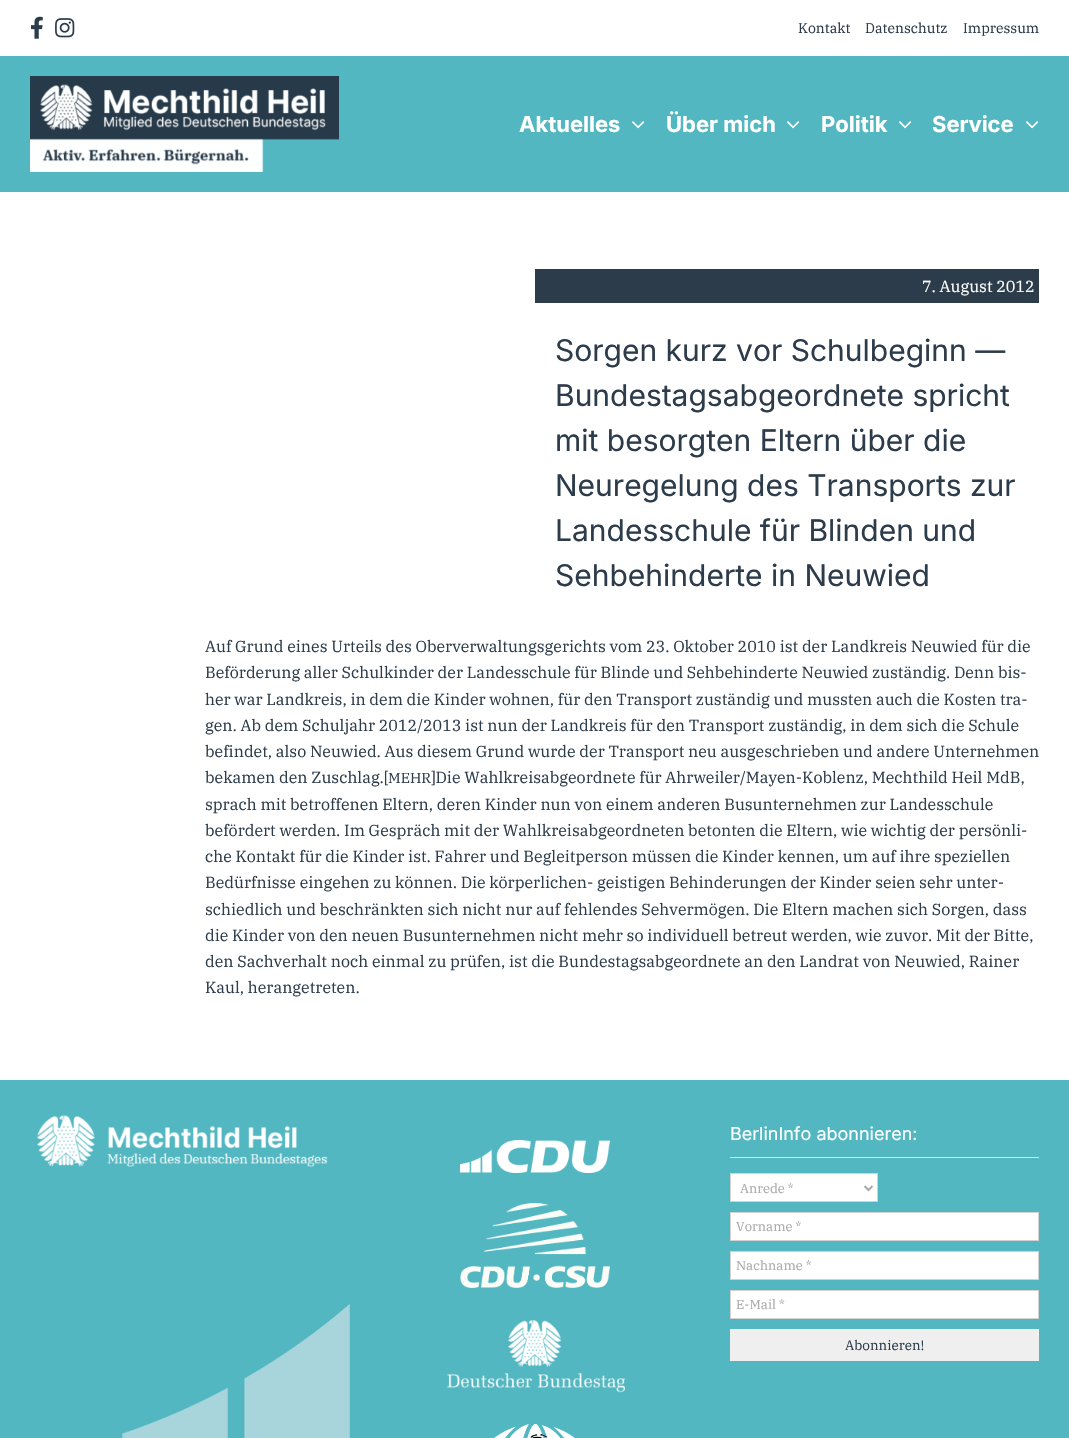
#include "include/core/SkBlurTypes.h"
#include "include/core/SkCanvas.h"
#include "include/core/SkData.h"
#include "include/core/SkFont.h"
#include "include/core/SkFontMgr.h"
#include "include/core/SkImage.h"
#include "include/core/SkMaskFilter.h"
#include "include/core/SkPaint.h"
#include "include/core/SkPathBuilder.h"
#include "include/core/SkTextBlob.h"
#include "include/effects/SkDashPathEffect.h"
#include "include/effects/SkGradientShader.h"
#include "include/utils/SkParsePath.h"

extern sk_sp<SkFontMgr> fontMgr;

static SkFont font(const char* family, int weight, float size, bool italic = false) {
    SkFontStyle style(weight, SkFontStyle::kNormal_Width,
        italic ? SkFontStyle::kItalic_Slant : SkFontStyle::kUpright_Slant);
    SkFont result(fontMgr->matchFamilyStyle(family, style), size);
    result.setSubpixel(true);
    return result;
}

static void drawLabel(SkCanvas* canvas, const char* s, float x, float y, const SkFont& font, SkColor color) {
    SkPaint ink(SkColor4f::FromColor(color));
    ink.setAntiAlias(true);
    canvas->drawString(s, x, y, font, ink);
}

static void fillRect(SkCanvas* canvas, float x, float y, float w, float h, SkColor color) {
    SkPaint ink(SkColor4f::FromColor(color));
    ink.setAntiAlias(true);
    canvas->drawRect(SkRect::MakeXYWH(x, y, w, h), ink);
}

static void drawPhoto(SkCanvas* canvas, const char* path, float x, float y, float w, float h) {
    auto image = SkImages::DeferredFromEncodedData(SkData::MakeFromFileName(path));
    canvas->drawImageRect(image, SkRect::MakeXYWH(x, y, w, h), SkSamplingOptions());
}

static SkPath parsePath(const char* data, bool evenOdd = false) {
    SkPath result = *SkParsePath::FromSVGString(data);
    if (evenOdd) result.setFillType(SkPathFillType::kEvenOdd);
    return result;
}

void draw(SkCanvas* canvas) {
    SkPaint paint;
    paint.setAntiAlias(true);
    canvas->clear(0xFFFFFFFF);
    fillRect(canvas, 0, 56, 1069, 136, 0xFF52B7C1);
    drawPhoto(canvas, "assets/img1.png", 31, 16, 12, 23);
    drawPhoto(canvas, "assets/img2.png", 55, 18, 20, 20);
    SkFont font1 = font("IBM Plex Serif", 400, 14);
    drawLabel(canvas, "Kontakt", 798, 33, font1, 0xFF2D3C4B);
    drawLabel(canvas, "Datenschutz", 865, 33, font1, 0xFF2D3C4B);
    drawLabel(canvas, "Impressum", 963, 33, font1, 0xFF2D3C4B);
    drawPhoto(canvas, "assets/img3.png", 30, 76, 309, 96);
    SkFont font2 = font("Inter", 700, 22);
    drawLabel(canvas, "Aktuelles", 519, 132, font2, 0xFFFFFFFF);
    drawPhoto(canvas, "assets/img4.png", 632, 121, 13, 8);
    drawLabel(canvas, "Über mich", 666, 132, font2, 0xFFFFFFFF);
    drawPhoto(canvas, "assets/img4.png", 787, 121, 13, 8);
    drawLabel(canvas, "Politik", 821, 132, font2, 0xFFFFFFFF);
    drawPhoto(canvas, "assets/img4.png", 899, 121, 13, 8);
    drawLabel(canvas, "Service", 932, 132, font2, 0xFFFFFFFF);
    drawPhoto(canvas, "assets/img4.png", 1026, 121, 13, 8);
    fillRect(canvas, 535, 269, 504, 34, 0xFF2D3C4B);
    SkFont font3 = font("IBM Plex Serif", 400, 16);
    drawLabel(canvas, "7. August 2012", 922, 292, font3, 0xFFFFFFFF);
    SkFont font4 = font("Inter", 400, 30);
    drawLabel(canvas, "Sorgen kurz vor Schulbeginn —", 555, 361, font4, 0xFF2D3C4B);
    drawLabel(canvas, "Bundestagsabgeordnete spricht", 555, 406, font4, 0xFF2D3C4B);
    drawLabel(canvas, "mit besorgten Eltern über die", 555, 451, font4, 0xFF2D3C4B);
    drawLabel(canvas, "Neuregelung des Transports zur", 555, 496, font4, 0xFF2D3C4B);
    drawLabel(canvas, "Landesschule für Blinden und", 555, 541, font4, 0xFF2D3C4B);
    drawLabel(canvas, "Sehbehinderte in Neuwied", 555, 586, font4, 0xFF2D3C4B);
    drawLabel(canvas, "Auf Grund eines Urteils des Oberverwaltungsgerichts vom 23. Oktober 2010 ist der Landkreis Neuwied für die", 205, 652, font3, 0xFF2D3C4B);
    drawLabel(canvas, "Beförderung aller Schulkinder der Landesschule für Blinde und Sehbehinderte Neuwied zuständig. Denn bis-", 205, 678, font3, 0xFF2D3C4B);
    drawLabel(canvas, "her war Landkreis, in dem die Kinder wohnen, für den Transport zuständig und mussten auch die Kosten tra-", 205, 705, font3, 0xFF2D3C4B);
    drawLabel(canvas, "gen. Ab dem Schuljahr 2012/2013 ist nun der Landkreis für den Transport zuständig, in dem sich die Schule", 205, 731, font3, 0xFF2D3C4B);
    drawLabel(canvas, "befindet, also Neuwied. Aus diesem Grund wurde der Transport neu ausgeschrieben und andere Unternehmen", 205, 757, font3, 0xFF2D3C4B);
    drawLabel(canvas, "bekamen den Zuschlag.[", 205, 783, font3, 0xFF2D3C4B);
    SkFont font5 = font("IBM Plex Serif", 400, 14.5f);
    drawLabel(canvas, "MEHR", 388, 783, font5, 0xFF2D3C4B);
    drawLabel(canvas, "]Die Wahlkreisabgeordnete für Ahrweiler/Mayen-Koblenz, Mechthild Heil MdB,", 431, 783, font3, 0xFF2D3C4B);
    drawLabel(canvas, "sprach mit betroffenen Eltern, deren Kinder nun von einem anderen Busunternehmen zur Landesschule", 205, 810, font3, 0xFF2D3C4B);
    drawLabel(canvas, "befördert werden. Im Gespräch mit der Wahlkreisabgeordneten betonten die Eltern, wie wichtig der persönli-", 205, 836, font3, 0xFF2D3C4B);
    drawLabel(canvas, "che Kontakt für die Kinder ist. Fahrer und Begleitperson müssen die Kinder kennen, um auf ihre speziellen", 205, 862, font3, 0xFF2D3C4B);
    drawLabel(canvas, "Bedürfnisse eingehen zu können. Die körperlichen- geistigen Behinderungen der Kinder seien sehr unter-", 205, 888, font3, 0xFF2D3C4B);
    drawLabel(canvas, "schiedlich und beschränkten sich nicht nur auf fehlendes Sehvermögen. Die Eltern machen sich Sorgen, dass", 205, 915, font3, 0xFF2D3C4B);
    drawLabel(canvas, "die Kinder von den neuen Busunternehmen nicht mehr so individuell betreut werden, wie zuvor. Mit der Bitte,", 205, 941, font3, 0xFF2D3C4B);
    drawLabel(canvas, "den Sachverhalt noch einmal zu prüfen, ist die Bundestagsabgeordnete an den Landrat von Neuwied, Rainer", 205, 967, font3, 0xFF2D3C4B);
    drawLabel(canvas, "Kaul, herangetreten.", 205, 993, font3, 0xFF2D3C4B);
    fillRect(canvas, 0, 1080, 1069, 358, 0xFF52B7C1);
    drawPhoto(canvas, "assets/img5.png", 122, 1304, 228, 134);
    drawPhoto(canvas, "assets/img6.png", 37, 1115, 291, 52);
    drawPhoto(canvas, "assets/img7.png", 460, 1140, 150, 33);
    drawPhoto(canvas, "assets/img8.png", 460, 1203, 150, 85);
    drawPhoto(canvas, "assets/img9.png", 446, 1320, 179, 73);
    drawPhoto(canvas, "assets/img10.png", 494, 1424, 81, 14);
    fillRect(canvas, 730, 1157, 309, 1, 0xFFE2E2E2);
    SkFont font6 = font("Inter", 400, 18);
    drawLabel(canvas, "BerlinInfo abonnieren:", 730, 1140, font6, 0xFFFFFFFF);
    paint.setColor(0xFFFFFFFF);
    canvas->drawRect(SkRect::MakeXYWH(730.5f, 1173.5f, 147, 28), paint);
    paint.setStroke(true);
    paint.setStrokeWidth(1);
    paint.setColor(0xFFD2D2D2);
    canvas->drawRect(SkRect::MakeXYWH(730.5f, 1173.5f, 147, 28), paint);
    paint.setStrokeWidth(2);
    paint.setColor(0xFFAAA9A9);
    canvas->drawPath(parsePath("M864.5 1186L868.5 1190L872.5 1186"), paint);
    SkFont font7 = font("IBM Plex Serif", 400, 13);
    drawLabel(canvas, "Anrede *", 740, 1193, font7, 0xFFAAA9A9);
    paint.setStroke(false);
    paint.setColor(0xFFFFFFFF);
    canvas->drawRect(SkRect::MakeXYWH(730.5f, 1212.5f, 308, 28), paint);
    paint.setStroke(true);
    paint.setStrokeWidth(1);
    paint.setColor(0xFFD2D2D2);
    canvas->drawRect(SkRect::MakeXYWH(730.5f, 1212.5f, 308, 28), paint);
    drawLabel(canvas, "Vorname *", 736, 1231, font7, 0xFFAAA9A9);
    paint.setStroke(false);
    paint.setColor(0xFFFFFFFF);
    canvas->drawRect(SkRect::MakeXYWH(730.5f, 1251.5f, 308, 28), paint);
    paint.setStroke(true);
    paint.setColor(0xFFD2D2D2);
    canvas->drawRect(SkRect::MakeXYWH(730.5f, 1251.5f, 308, 28), paint);
    drawLabel(canvas, "Nachname *", 736, 1270, font7, 0xFFAAA9A9);
    paint.setStroke(false);
    paint.setColor(0xFFFFFFFF);
    canvas->drawRect(SkRect::MakeXYWH(730.5f, 1290.5f, 308, 28), paint);
    paint.setStroke(true);
    paint.setColor(0xFFD2D2D2);
    canvas->drawRect(SkRect::MakeXYWH(730.5f, 1290.5f, 308, 28), paint);
    drawLabel(canvas, "E-Mail *", 736, 1309, font7, 0xFFAAA9A9);
    fillRect(canvas, 730, 1329, 309, 32, 0xFFEFEFEF);
    SkFont font8 = font("IBM Plex Serif", 400, 13.5f);
    drawLabel(canvas, "Abonnieren!", 845, 1350, font8, 0xFF2D3C4B);
}
